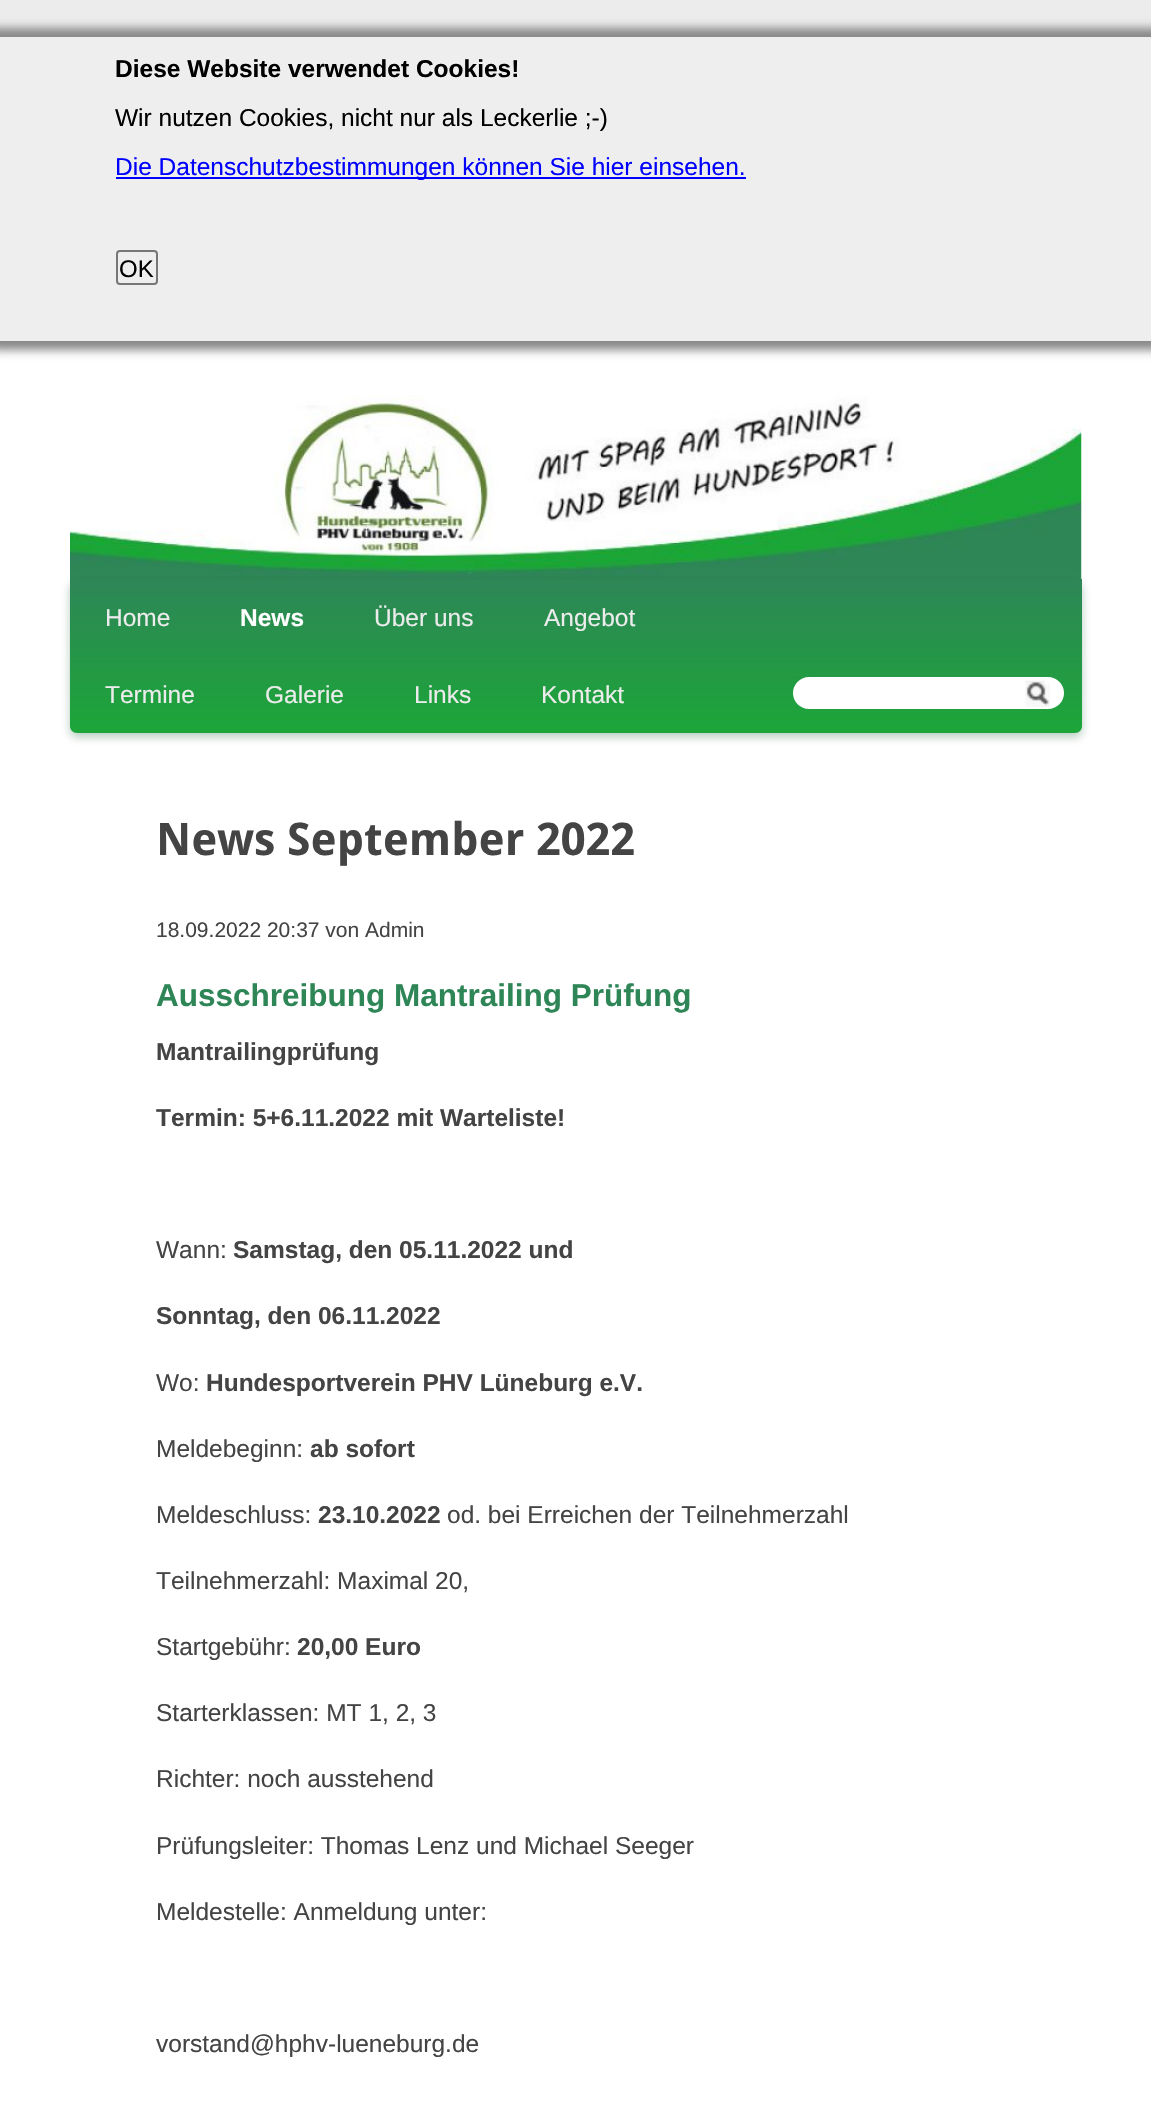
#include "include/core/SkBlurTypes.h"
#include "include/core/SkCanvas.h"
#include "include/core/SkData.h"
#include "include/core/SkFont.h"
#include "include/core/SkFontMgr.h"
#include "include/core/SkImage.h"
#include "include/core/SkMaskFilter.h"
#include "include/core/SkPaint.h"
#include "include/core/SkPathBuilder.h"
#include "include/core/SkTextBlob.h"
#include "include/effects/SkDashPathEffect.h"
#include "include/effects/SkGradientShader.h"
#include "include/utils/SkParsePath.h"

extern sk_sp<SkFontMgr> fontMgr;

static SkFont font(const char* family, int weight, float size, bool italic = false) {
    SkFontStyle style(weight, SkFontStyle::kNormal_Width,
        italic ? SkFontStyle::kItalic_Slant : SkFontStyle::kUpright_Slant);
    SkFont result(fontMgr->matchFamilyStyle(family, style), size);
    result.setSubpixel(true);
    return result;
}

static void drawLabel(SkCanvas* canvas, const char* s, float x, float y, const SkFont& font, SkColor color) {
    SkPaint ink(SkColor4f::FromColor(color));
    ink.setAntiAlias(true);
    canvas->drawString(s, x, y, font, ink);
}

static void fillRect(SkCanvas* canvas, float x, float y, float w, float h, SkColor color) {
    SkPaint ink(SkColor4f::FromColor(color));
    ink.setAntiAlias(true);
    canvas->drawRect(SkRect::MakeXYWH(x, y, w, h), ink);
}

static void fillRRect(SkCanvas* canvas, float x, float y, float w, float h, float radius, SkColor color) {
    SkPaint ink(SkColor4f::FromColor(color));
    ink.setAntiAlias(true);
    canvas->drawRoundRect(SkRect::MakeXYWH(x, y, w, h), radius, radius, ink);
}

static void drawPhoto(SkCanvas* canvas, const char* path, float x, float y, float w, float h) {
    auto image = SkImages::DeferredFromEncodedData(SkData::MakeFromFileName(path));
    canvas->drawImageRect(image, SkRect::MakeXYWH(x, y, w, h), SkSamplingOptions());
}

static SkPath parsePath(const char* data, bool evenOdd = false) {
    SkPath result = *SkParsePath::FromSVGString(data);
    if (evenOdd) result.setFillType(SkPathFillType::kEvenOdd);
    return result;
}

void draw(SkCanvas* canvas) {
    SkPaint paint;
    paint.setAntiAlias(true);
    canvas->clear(0xFFECECEC);
    fillRect(canvas, 0, 341, 1151, 1787, 0xFFFFFFFF);
    paint.setColor(0xFF888888);
    paint.setMaskFilter(SkMaskFilter::MakeBlur(kNormal_SkBlurStyle, 4.5f));
    canvas->drawRect(SkRect::MakeXYWH(-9, 28, 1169, 322), paint);
    paint.setMaskFilter(nullptr);
    fillRect(canvas, 0, 37, 1151, 304, 0xFFEEEEEE);
    SkFont font1 = font("Liberation Sans", 700, 24.5f);
    drawLabel(canvas, "Diese Website verwendet Cookies!", 115, 77, font1, 0xFF000000);
    SkFont font2 = font("Liberation Sans", 400, 24.5f);
    drawLabel(canvas, "Wir nutzen Cookies, nicht nur als Leckerlie ;-)", 115, 126, font2, 0xFF000000);
    fillRect(canvas, 116, 177, 630, 2, 0xFF0000FF);
    drawLabel(canvas, "Die Datenschutzbestimmungen können Sie hier einsehen.", 115, 175, font2, 0xFF0000FF);
    paint.setStroke(true);
    paint.setStrokeWidth(2);
    paint.setColor(0xFF767676);
    canvas->drawRoundRect(SkRect::MakeXYWH(117, 251, 40, 33), 3, 3, paint);
    SkFont font3 = font("Liberation Sans", 400, 24);
    drawLabel(canvas, "OK", 119, 277, font3, 0xFF000000);
    drawPhoto(canvas, "assets/img1.png", 70, 395, 1012, 184);
    paint.setStroke(false);
    paint.setColor(0x4D065223);
    paint.setMaskFilter(SkMaskFilter::MakeBlur(kNormal_SkBlurStyle, 5));
    canvas->drawRoundRect(SkRect::MakeXYWH(70, 583, 1012, 154), 7, 7, paint);
    paint.setMaskFilter(nullptr);
    {
        const SkColor colors[] = {0xFF2E8657, 0xFF1CA638};
        const float stops[] = {0, 1};
        const SkPoint ends[] = {{576, 579}, {576, 733}};
        paint.setShader(SkGradientShader::MakeLinear(ends, colors, stops, 2, SkTileMode::kClamp));
        paint.setAlpha(255);
    }
    canvas->drawPath(parsePath("M70 579H1082V726C1082 730 1079 733 1075 733H77C73 733 70 730 70 726Z"), paint);
    drawLabel(canvas, "Home", 105, 626, font2, 0xFFECECEC);
    drawLabel(canvas, "News", 240, 626, font1, 0xFFFFFFFF);
    drawLabel(canvas, "Über uns", 374, 626, font2, 0xFFECECEC);
    drawLabel(canvas, "Angebot", 544, 626, font2, 0xFFECECEC);
    drawLabel(canvas, "Termine", 105, 703, font2, 0xFFECECEC);
    drawLabel(canvas, "Galerie", 265, 703, font2, 0xFFECECEC);
    drawLabel(canvas, "Links", 414, 703, font2, 0xFFECECEC);
    drawLabel(canvas, "Kontakt", 541, 703, font2, 0xFFECECEC);
    fillRRect(canvas, 793, 677, 271, 32, 16, 0xFFFFFFFF);
    drawPhoto(canvas, "assets/img2.png", 1025, 680, 25, 27);
    SkFont font4 = font("Droid Sans", 700, 45);
    drawLabel(canvas, "News September 2022", 156, 855, font4, 0xFF444444);
    SkFont font5 = font("Liberation Sans", 400, 21);
    drawLabel(canvas, "18.09.2022 20:37 von Admin", 156, 937, font5, 0xFF444444);
    SkFont font6 = font("Liberation Sans", 700, 31.5f);
    drawLabel(canvas, "Ausschreibung Mantrailing Prüfung", 156, 1006, font6, 0xFF2E8657);
    drawLabel(canvas, "Mantrailingprüfung", 156, 1060, font1, 0xFF444444);
    drawLabel(canvas, "Termin: 5+6.11.2022 mit Warteliste!", 156, 1126, font1, 0xFF444444);
    drawLabel(canvas, "Wann:", 156, 1258, font2, 0xFF444444);
    drawLabel(canvas, "Samstag, den 05.11.2022 und", 233, 1258, font1, 0xFF444444);
    drawLabel(canvas, "Sonntag, den 06.11.2022", 156, 1324, font1, 0xFF444444);
    drawLabel(canvas, "Wo:", 156, 1391, font2, 0xFF444444);
    drawLabel(canvas, "Hundesportverein PHV Lüneburg e.V.", 206, 1391, font1, 0xFF444444);
    drawLabel(canvas, "Meldebeginn:", 156, 1457, font2, 0xFF444444);
    drawLabel(canvas, "ab sofort", 310, 1457, font1, 0xFF444444);
    drawLabel(canvas, "Meldeschluss:", 156, 1523, font2, 0xFF444444);
    drawLabel(canvas, "23.10.2022", 318, 1523, font1, 0xFF444444);
    drawLabel(canvas, "od. bei Erreichen der Teilnehmerzahl", 447, 1523, font2, 0xFF444444);
    drawLabel(canvas, "Teilnehmerzahl: Maximal 20,", 156, 1589, font2, 0xFF444444);
    drawLabel(canvas, "Startgebühr:", 156, 1655, font2, 0xFF444444);
    drawLabel(canvas, "20,00 Euro", 297, 1655, font1, 0xFF444444);
    drawLabel(canvas, "Starterklassen: MT 1, 2, 3", 156, 1721, font2, 0xFF444444);
    drawLabel(canvas, "Richter: noch ausstehend", 156, 1787, font2, 0xFF444444);
    drawLabel(canvas, "Prüfungsleiter: Thomas Lenz und Michael Seeger", 156, 1854, font2, 0xFF444444);
    drawLabel(canvas, "Meldestelle: Anmeldung unter:", 156, 1920, font2, 0xFF444444);
    drawLabel(canvas, "vorstand@hphv-lueneburg.de", 156, 2052, font2, 0xFF444444);
}
